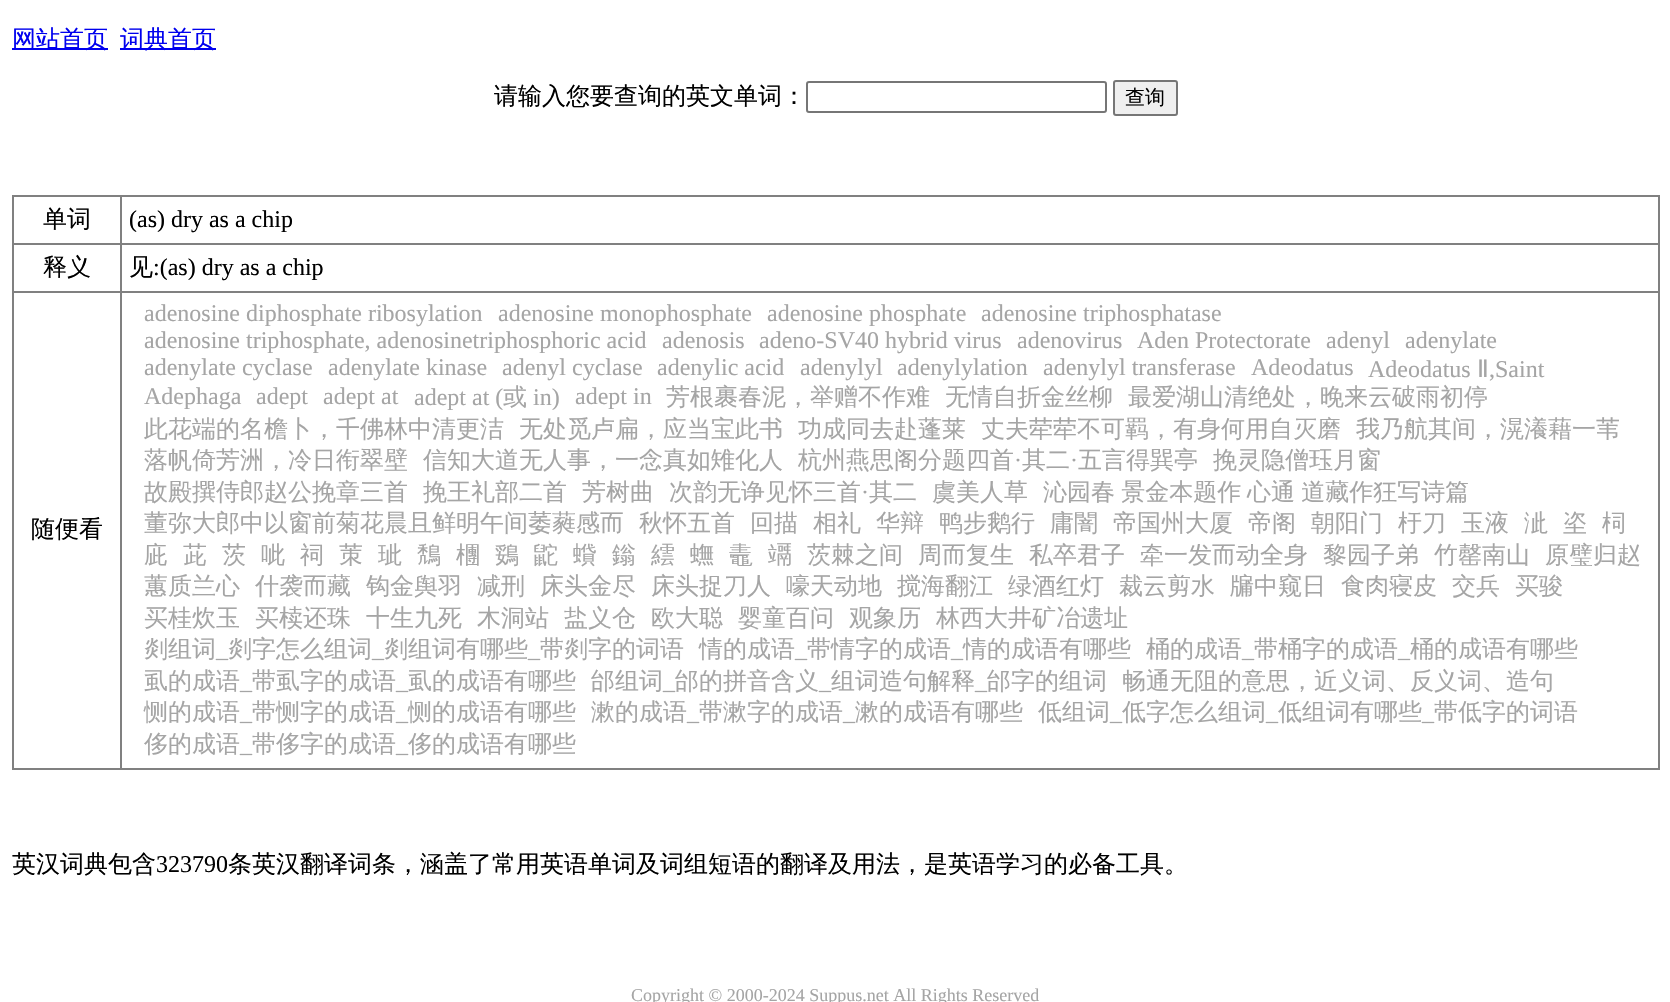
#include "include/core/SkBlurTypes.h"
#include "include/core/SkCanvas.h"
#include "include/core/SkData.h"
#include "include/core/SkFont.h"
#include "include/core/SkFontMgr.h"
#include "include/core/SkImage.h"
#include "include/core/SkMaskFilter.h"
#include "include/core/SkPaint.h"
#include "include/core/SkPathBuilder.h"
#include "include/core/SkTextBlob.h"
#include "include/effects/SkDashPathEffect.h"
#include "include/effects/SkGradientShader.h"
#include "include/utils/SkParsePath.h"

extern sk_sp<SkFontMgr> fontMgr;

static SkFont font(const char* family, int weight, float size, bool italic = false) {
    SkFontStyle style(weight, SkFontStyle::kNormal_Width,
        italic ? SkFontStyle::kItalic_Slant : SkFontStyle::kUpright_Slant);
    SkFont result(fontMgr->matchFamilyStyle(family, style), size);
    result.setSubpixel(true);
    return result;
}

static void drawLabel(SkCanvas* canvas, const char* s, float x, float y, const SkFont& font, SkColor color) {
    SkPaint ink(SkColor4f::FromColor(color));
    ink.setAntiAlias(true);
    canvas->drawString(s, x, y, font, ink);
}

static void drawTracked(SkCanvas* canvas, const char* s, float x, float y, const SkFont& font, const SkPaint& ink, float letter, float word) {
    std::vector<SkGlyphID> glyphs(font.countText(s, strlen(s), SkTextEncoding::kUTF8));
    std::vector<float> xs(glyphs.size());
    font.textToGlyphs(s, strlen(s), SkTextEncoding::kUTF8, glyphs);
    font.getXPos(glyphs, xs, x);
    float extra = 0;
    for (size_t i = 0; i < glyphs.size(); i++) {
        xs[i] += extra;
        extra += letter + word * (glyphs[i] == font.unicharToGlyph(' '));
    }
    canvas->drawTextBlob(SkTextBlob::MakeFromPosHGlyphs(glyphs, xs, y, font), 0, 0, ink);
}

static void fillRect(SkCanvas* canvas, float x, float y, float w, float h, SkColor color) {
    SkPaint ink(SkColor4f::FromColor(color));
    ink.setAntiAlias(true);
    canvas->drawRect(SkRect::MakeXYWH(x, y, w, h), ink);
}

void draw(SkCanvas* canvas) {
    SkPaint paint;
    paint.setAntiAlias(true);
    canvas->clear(0xFFFFFFFF);
    fillRect(canvas, 12, 48, 96, 2, 0xFF0000EE);
    SkFont font1 = font("WenQuanYi Zen Hei", 500, 24);
    drawLabel(canvas, "网站首页", 12, 47, font1, 0xFF0000EE);
    fillRect(canvas, 120, 48, 96, 2, 0xFF0000EE);
    drawLabel(canvas, "词典首页", 120, 47, font1, 0xFF0000EE);
    drawLabel(canvas, "请输入您要查询的英文单词：", 494, 104, font1, 0xFF000000);
    paint.setStroke(true);
    paint.setStrokeWidth(2);
    paint.setColor(0xFF767676);
    canvas->drawRoundRect(SkRect::MakeXYWH(807, 82, 299, 30), 2, 2, paint);
    paint.setStroke(false);
    paint.setColor(0xFFEFEFEF);
    canvas->drawRoundRect(SkRect::MakeXYWH(1114, 81, 63, 34), 2, 2, paint);
    paint.setStroke(true);
    paint.setColor(0xFF767676);
    canvas->drawRoundRect(SkRect::MakeXYWH(1114, 81, 63, 34), 2, 2, paint);
    SkFont font2 = font("WenQuanYi Zen Hei", 500, 20);
    drawLabel(canvas, "查询", 1125, 104, font2, 0xFF000000);
    fillRect(canvas, 12, 195, 1647, 2, 0xFF808080);
    fillRect(canvas, 1658, 195, 2, 575, 0xFF808080);
    fillRect(canvas, 12, 768, 1647, 2, 0xFF808080);
    fillRect(canvas, 12, 195, 2, 575, 0xFF808080);
    drawLabel(canvas, "单词", 43, 227, font1, 0xFF000000);
    fillRect(canvas, 120, 243, 1539, 2, 0xFF808080);
    fillRect(canvas, 120, 291, 1539, 2, 0xFF808080);
    fillRect(canvas, 120, 291, 2, 479, 0xFF808080);
    fillRect(canvas, 12, 291, 110, 2, 0xFF808080);
    fillRect(canvas, 120, 243, 2, 50, 0xFF808080);
    fillRect(canvas, 12, 243, 110, 2, 0xFF808080);
    fillRect(canvas, 120, 195, 2, 50, 0xFF808080);
    SkFont font3 = font("Liberation Serif", 400, 24);
    drawLabel(canvas, "(as) dry as a chip", 129, 227, font3, 0xFF000000);
    drawLabel(canvas, "释义", 43, 275, font1, 0xFF000000);
    drawLabel(canvas, "见", 129, 275, font1, 0xFF000000);
    drawLabel(canvas, ":(as) dry as a chip", 153, 275, font3, 0xFF000000);
    drawLabel(canvas, "随便看", 31, 537, font1, 0xFF000000);
    drawLabel(canvas, "adenosine diphosphate ribosylation", 144, 321, font3, 0xFFA5A5A5);
    drawLabel(canvas, "adenosine monophosphate", 498, 321, font3, 0xFFA5A5A5);
    drawLabel(canvas, "adenosine phosphate", 767, 321, font3, 0xFFA5A5A5);
    drawLabel(canvas, "adenosine triphosphatase", 981, 321, font3, 0xFFA5A5A5);
    drawLabel(canvas, "adenosine triphosphate, adenosinetriphosphoric acid", 144, 348, font3, 0xFFA5A5A5);
    drawLabel(canvas, "adenosis", 662, 348, font3, 0xFFA5A5A5);
    drawLabel(canvas, "adeno-SV40 hybrid virus", 759, 348, font3, 0xFFA5A5A5);
    drawLabel(canvas, "adenovirus", 1017, 348, font3, 0xFFA5A5A5);
    drawLabel(canvas, "Aden Protectorate", 1137, 348, font3, 0xFFA5A5A5);
    drawLabel(canvas, "adenyl", 1326, 348, font3, 0xFFA5A5A5);
    drawLabel(canvas, "adenylate", 1405, 348, font3, 0xFFA5A5A5);
    drawLabel(canvas, "adenylate cyclase", 144, 375, font3, 0xFFA5A5A5);
    drawLabel(canvas, "adenylate kinase", 328, 375, font3, 0xFFA5A5A5);
    drawLabel(canvas, "adenyl cyclase", 502, 375, font3, 0xFFA5A5A5);
    drawLabel(canvas, "adenylic acid", 657, 375, font3, 0xFFA5A5A5);
    drawLabel(canvas, "adenylyl", 800, 375, font3, 0xFFA5A5A5);
    drawLabel(canvas, "adenylylation", 897, 375, font3, 0xFFA5A5A5);
    drawLabel(canvas, "adenylyl transferase", 1043, 375, font3, 0xFFA5A5A5);
    drawLabel(canvas, "Adeodatus", 1251, 375, font3, 0xFFA5A5A5);
    drawLabel(canvas, "Adeodatus", 1368, 377, font3, 0xFFA5A5A5);
    SkFont font4 = font("DejaVu Sans", 400, 24);
    drawLabel(canvas, "Ⅱ", 1477, 377, font4, 0xFFA5A5A5);
    drawLabel(canvas, ",Saint", 1489, 377, font3, 0xFFA5A5A5);
    drawLabel(canvas, "Adephaga", 144, 404, font3, 0xFFA5A5A5);
    drawLabel(canvas, "adept", 256, 404, font3, 0xFFA5A5A5);
    drawLabel(canvas, "adept at", 323, 404, font3, 0xFFA5A5A5);
    drawLabel(canvas, "adept at (", 414, 405, font3, 0xFFA5A5A5);
    drawLabel(canvas, "或", 503, 405, font1, 0xFFA5A5A5);
    drawLabel(canvas, "in)", 533, 405, font3, 0xFFA5A5A5);
    drawLabel(canvas, "adept in", 575, 404, font3, 0xFFA5A5A5);
    drawLabel(canvas, "芳根裹春泥，举赠不作难", 666, 405, font1, 0xFFA5A5A5);
    drawLabel(canvas, "无情自折金丝柳", 945, 405, font1, 0xFFA5A5A5);
    drawLabel(canvas, "最爱湖山清绝处，晚来云破雨初停", 1128, 405, font1, 0xFFA5A5A5);
    drawLabel(canvas, "此花端的名檐卜，千佛林中清更洁", 144, 437, font1, 0xFFA5A5A5);
    drawLabel(canvas, "无处觅卢扁，应当宝此书", 519, 437, font1, 0xFFA5A5A5);
    drawLabel(canvas, "功成同去赴蓬莱", 798, 437, font1, 0xFFA5A5A5);
    drawLabel(canvas, "丈夫荦荦不可羁，有身何用自灭磨", 981, 437, font1, 0xFFA5A5A5);
    drawLabel(canvas, "我乃航其间，滉瀁藉一苇", 1356, 437, font1, 0xFFA5A5A5);
    drawLabel(canvas, "落帆倚芳洲，冷日衔翠壁", 144, 468, font1, 0xFFA5A5A5);
    drawLabel(canvas, "信知大道无人事，一念真如雉化人", 423, 468, font1, 0xFFA5A5A5);
    drawLabel(canvas, "杭州燕思阁分题四首", 798, 468, font1, 0xFFA5A5A5);
    drawLabel(canvas, "·", 1014, 468, font3, 0xFFA5A5A5);
    drawLabel(canvas, "其二", 1022, 468, font1, 0xFFA5A5A5);
    drawLabel(canvas, "·", 1070, 468, font3, 0xFFA5A5A5);
    drawLabel(canvas, "五言得巽亭", 1078, 468, font1, 0xFFA5A5A5);
    drawLabel(canvas, "挽灵隐僧珏月窗", 1213, 468, font1, 0xFFA5A5A5);
    drawLabel(canvas, "故殿撰侍郎赵公挽章三首", 144, 500, font1, 0xFFA5A5A5);
    drawLabel(canvas, "挽王礼部二首", 423, 500, font1, 0xFFA5A5A5);
    drawLabel(canvas, "芳树曲", 582, 500, font1, 0xFFA5A5A5);
    drawLabel(canvas, "次韵无诤见怀三首", 669, 500, font1, 0xFFA5A5A5);
    drawLabel(canvas, "·", 861, 500, font3, 0xFFA5A5A5);
    drawLabel(canvas, "其二", 869, 500, font1, 0xFFA5A5A5);
    drawLabel(canvas, "虞美人草", 932, 500, font1, 0xFFA5A5A5);
    paint.setStroke(false);
    paint.setColor(0xFFA5A5A5);
    drawTracked(canvas, "沁园春 景金本题作", 1043, 500, font1, paint, 0, -1);
    drawTracked(canvas, "心通 道藏作狂写诗篇", 1247, 500, font1, paint, 0, -1);
    drawLabel(canvas, "董弥大郎中以窗前菊花晨且鲜明午间萎蕤感而", 144, 531, font1, 0xFFA5A5A5);
    drawLabel(canvas, "秋怀五首", 639, 531, font1, 0xFFA5A5A5);
    drawLabel(canvas, "回描", 750, 531, font1, 0xFFA5A5A5);
    drawLabel(canvas, "相礼", 813, 531, font1, 0xFFA5A5A5);
    drawLabel(canvas, "华辩", 876, 531, font1, 0xFFA5A5A5);
    drawLabel(canvas, "鸭步鹅行", 939, 531, font1, 0xFFA5A5A5);
    drawLabel(canvas, "庸闇", 1050, 531, font1, 0xFFA5A5A5);
    drawLabel(canvas, "帝国州大厦", 1113, 531, font1, 0xFFA5A5A5);
    drawLabel(canvas, "帝阁", 1248, 531, font1, 0xFFA5A5A5);
    drawLabel(canvas, "朝阳门", 1311, 531, font1, 0xFFA5A5A5);
    drawLabel(canvas, "杅刀", 1398, 531, font1, 0xFFA5A5A5);
    drawLabel(canvas, "玉液", 1461, 531, font1, 0xFFA5A5A5);
    drawLabel(canvas, "泚", 1524, 531, font1, 0xFFA5A5A5);
    drawLabel(canvas, "垐", 1563, 531, font1, 0xFFA5A5A5);
    drawLabel(canvas, "柌", 1602, 531, font1, 0xFFA5A5A5);
    drawLabel(canvas, "庛", 144, 563, font1, 0xFFA5A5A5);
    drawLabel(canvas, "茈", 183, 563, font1, 0xFFA5A5A5);
    drawLabel(canvas, "茨", 222, 563, font1, 0xFFA5A5A5);
    drawLabel(canvas, "呲", 261, 563, font1, 0xFFA5A5A5);
    drawLabel(canvas, "祠", 300, 563, font1, 0xFFA5A5A5);
    drawLabel(canvas, "茦", 339, 563, font1, 0xFFA5A5A5);
    drawLabel(canvas, "玼", 378, 563, font1, 0xFFA5A5A5);
    drawLabel(canvas, "鵚", 417, 563, font1, 0xFFA5A5A5);
    drawLabel(canvas, "檲", 456, 563, font1, 0xFFA5A5A5);
    drawLabel(canvas, "鵎", 495, 563, font1, 0xFFA5A5A5);
    drawLabel(canvas, "鼧", 534, 563, font1, 0xFFA5A5A5);
    drawLabel(canvas, "蟘", 573, 563, font1, 0xFFA5A5A5);
    drawLabel(canvas, "鎓", 612, 563, font1, 0xFFA5A5A5);
    drawLabel(canvas, "繧", 651, 563, font1, 0xFFA5A5A5);
    drawLabel(canvas, "蟱", 690, 563, font1, 0xFFA5A5A5);
    drawLabel(canvas, "鼃", 729, 563, font1, 0xFFA5A5A5);
    drawLabel(canvas, "竵", 768, 563, font1, 0xFFA5A5A5);
    drawLabel(canvas, "茨棘之间", 807, 563, font1, 0xFFA5A5A5);
    drawLabel(canvas, "周而复生", 918, 563, font1, 0xFFA5A5A5);
    drawLabel(canvas, "私卒君子", 1029, 563, font1, 0xFFA5A5A5);
    drawLabel(canvas, "牵一发而动全身", 1140, 563, font1, 0xFFA5A5A5);
    drawLabel(canvas, "黎园子弟", 1323, 563, font1, 0xFFA5A5A5);
    drawLabel(canvas, "竹罄南山", 1434, 563, font1, 0xFFA5A5A5);
    drawLabel(canvas, "原璧归赵", 1545, 563, font1, 0xFFA5A5A5);
    drawLabel(canvas, "蕙质兰心", 144, 594, font1, 0xFFA5A5A5);
    drawLabel(canvas, "什袭而藏", 255, 594, font1, 0xFFA5A5A5);
    drawLabel(canvas, "钩金舆羽", 366, 594, font1, 0xFFA5A5A5);
    drawLabel(canvas, "减刑", 477, 594, font1, 0xFFA5A5A5);
    drawLabel(canvas, "床头金尽", 540, 594, font1, 0xFFA5A5A5);
    drawLabel(canvas, "床头捉刀人", 651, 594, font1, 0xFFA5A5A5);
    drawLabel(canvas, "嚎天动地", 786, 594, font1, 0xFFA5A5A5);
    drawLabel(canvas, "搅海翻江", 897, 594, font1, 0xFFA5A5A5);
    drawLabel(canvas, "绿酒红灯", 1008, 594, font1, 0xFFA5A5A5);
    drawLabel(canvas, "裁云剪水", 1119, 594, font1, 0xFFA5A5A5);
    drawLabel(canvas, "牖中窥日", 1230, 594, font1, 0xFFA5A5A5);
    drawLabel(canvas, "食肉寝皮", 1341, 594, font1, 0xFFA5A5A5);
    drawLabel(canvas, "交兵", 1452, 594, font1, 0xFFA5A5A5);
    drawLabel(canvas, "买骏", 1515, 594, font1, 0xFFA5A5A5);
    drawLabel(canvas, "买桂炊玉", 144, 626, font1, 0xFFA5A5A5);
    drawLabel(canvas, "买椟还珠", 255, 626, font1, 0xFFA5A5A5);
    drawLabel(canvas, "十生九死", 366, 626, font1, 0xFFA5A5A5);
    drawLabel(canvas, "木洞站", 477, 626, font1, 0xFFA5A5A5);
    drawLabel(canvas, "盐义仓", 564, 626, font1, 0xFFA5A5A5);
    drawLabel(canvas, "欧大聪", 651, 626, font1, 0xFFA5A5A5);
    drawLabel(canvas, "婴童百问", 738, 626, font1, 0xFFA5A5A5);
    drawLabel(canvas, "观象历", 849, 626, font1, 0xFFA5A5A5);
    drawLabel(canvas, "林西大井矿冶遗址", 936, 626, font1, 0xFFA5A5A5);
    drawLabel(canvas, "剡组词", 144, 657, font1, 0xFFA5A5A5);
    drawLabel(canvas, "_", 216, 657, font3, 0xFFA5A5A5);
    drawLabel(canvas, "剡字怎么组词", 228, 657, font1, 0xFFA5A5A5);
    drawLabel(canvas, "_", 372, 657, font3, 0xFFA5A5A5);
    drawLabel(canvas, "剡组词有哪些", 384, 657, font1, 0xFFA5A5A5);
    drawLabel(canvas, "_", 528, 657, font3, 0xFFA5A5A5);
    drawLabel(canvas, "带剡字的词语", 540, 657, font1, 0xFFA5A5A5);
    drawLabel(canvas, "情的成语", 699, 657, font1, 0xFFA5A5A5);
    drawLabel(canvas, "_", 795, 657, font3, 0xFFA5A5A5);
    drawLabel(canvas, "带情字的成语", 807, 657, font1, 0xFFA5A5A5);
    drawLabel(canvas, "_", 951, 657, font3, 0xFFA5A5A5);
    drawLabel(canvas, "情的成语有哪些", 963, 657, font1, 0xFFA5A5A5);
    drawLabel(canvas, "桶的成语", 1146, 657, font1, 0xFFA5A5A5);
    drawLabel(canvas, "_", 1242, 657, font3, 0xFFA5A5A5);
    drawLabel(canvas, "带桶字的成语", 1254, 657, font1, 0xFFA5A5A5);
    drawLabel(canvas, "_", 1398, 657, font3, 0xFFA5A5A5);
    drawLabel(canvas, "桶的成语有哪些", 1410, 657, font1, 0xFFA5A5A5);
    drawLabel(canvas, "虱的成语", 144, 689, font1, 0xFFA5A5A5);
    drawLabel(canvas, "_", 240, 689, font3, 0xFFA5A5A5);
    drawLabel(canvas, "带虱字的成语", 252, 689, font1, 0xFFA5A5A5);
    drawLabel(canvas, "_", 396, 689, font3, 0xFFA5A5A5);
    drawLabel(canvas, "虱的成语有哪些", 408, 689, font1, 0xFFA5A5A5);
    drawLabel(canvas, "邰组词", 591, 689, font1, 0xFFA5A5A5);
    drawLabel(canvas, "_", 663, 689, font3, 0xFFA5A5A5);
    drawLabel(canvas, "邰的拼音含义", 675, 689, font1, 0xFFA5A5A5);
    drawLabel(canvas, "_", 819, 689, font3, 0xFFA5A5A5);
    drawLabel(canvas, "组词造句解释", 831, 689, font1, 0xFFA5A5A5);
    drawLabel(canvas, "_", 975, 689, font3, 0xFFA5A5A5);
    drawLabel(canvas, "邰字的组词", 987, 689, font1, 0xFFA5A5A5);
    drawLabel(canvas, "畅通无阻的意思，近义词、反义词、造句", 1122, 689, font1, 0xFFA5A5A5);
    drawLabel(canvas, "恻的成语", 144, 720, font1, 0xFFA5A5A5);
    drawLabel(canvas, "_", 240, 720, font3, 0xFFA5A5A5);
    drawLabel(canvas, "带恻字的成语", 252, 720, font1, 0xFFA5A5A5);
    drawLabel(canvas, "_", 396, 720, font3, 0xFFA5A5A5);
    drawLabel(canvas, "恻的成语有哪些", 408, 720, font1, 0xFFA5A5A5);
    drawLabel(canvas, "漱的成语", 591, 720, font1, 0xFFA5A5A5);
    drawLabel(canvas, "_", 687, 720, font3, 0xFFA5A5A5);
    drawLabel(canvas, "带漱字的成语", 699, 720, font1, 0xFFA5A5A5);
    drawLabel(canvas, "_", 843, 720, font3, 0xFFA5A5A5);
    drawLabel(canvas, "漱的成语有哪些", 855, 720, font1, 0xFFA5A5A5);
    drawLabel(canvas, "低组词", 1038, 720, font1, 0xFFA5A5A5);
    drawLabel(canvas, "_", 1110, 720, font3, 0xFFA5A5A5);
    drawLabel(canvas, "低字怎么组词", 1122, 720, font1, 0xFFA5A5A5);
    drawLabel(canvas, "_", 1266, 720, font3, 0xFFA5A5A5);
    drawLabel(canvas, "低组词有哪些", 1278, 720, font1, 0xFFA5A5A5);
    drawLabel(canvas, "_", 1422, 720, font3, 0xFFA5A5A5);
    drawLabel(canvas, "带低字的词语", 1434, 720, font1, 0xFFA5A5A5);
    drawLabel(canvas, "侈的成语", 144, 752, font1, 0xFFA5A5A5);
    drawLabel(canvas, "_", 240, 752, font3, 0xFFA5A5A5);
    drawLabel(canvas, "带侈字的成语", 252, 752, font1, 0xFFA5A5A5);
    drawLabel(canvas, "_", 396, 752, font3, 0xFFA5A5A5);
    drawLabel(canvas, "侈的成语有哪些", 408, 752, font1, 0xFFA5A5A5);
    drawLabel(canvas, "英汉词典包含", 12, 872, font1, 0xFF000000);
    drawLabel(canvas, "323790", 156, 872, font3, 0xFF000000);
    drawLabel(canvas, "条英汉翻译词条，涵盖了常用英语单词及词组短语的翻译及用法，是英语学习的必备工具。", 228, 872, font1, 0xFF000000);
    SkFont font5 = font("Liberation Serif", 400, 18);
    drawLabel(canvas, "Copyright © 2000-2024 Suppus.net All Rights Reserved", 631, 1001, font5, 0xFFA5A5A5);
}
